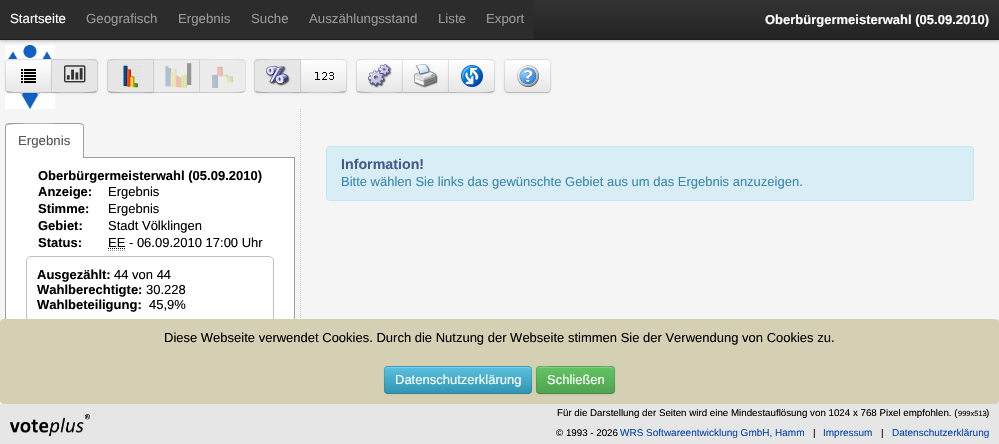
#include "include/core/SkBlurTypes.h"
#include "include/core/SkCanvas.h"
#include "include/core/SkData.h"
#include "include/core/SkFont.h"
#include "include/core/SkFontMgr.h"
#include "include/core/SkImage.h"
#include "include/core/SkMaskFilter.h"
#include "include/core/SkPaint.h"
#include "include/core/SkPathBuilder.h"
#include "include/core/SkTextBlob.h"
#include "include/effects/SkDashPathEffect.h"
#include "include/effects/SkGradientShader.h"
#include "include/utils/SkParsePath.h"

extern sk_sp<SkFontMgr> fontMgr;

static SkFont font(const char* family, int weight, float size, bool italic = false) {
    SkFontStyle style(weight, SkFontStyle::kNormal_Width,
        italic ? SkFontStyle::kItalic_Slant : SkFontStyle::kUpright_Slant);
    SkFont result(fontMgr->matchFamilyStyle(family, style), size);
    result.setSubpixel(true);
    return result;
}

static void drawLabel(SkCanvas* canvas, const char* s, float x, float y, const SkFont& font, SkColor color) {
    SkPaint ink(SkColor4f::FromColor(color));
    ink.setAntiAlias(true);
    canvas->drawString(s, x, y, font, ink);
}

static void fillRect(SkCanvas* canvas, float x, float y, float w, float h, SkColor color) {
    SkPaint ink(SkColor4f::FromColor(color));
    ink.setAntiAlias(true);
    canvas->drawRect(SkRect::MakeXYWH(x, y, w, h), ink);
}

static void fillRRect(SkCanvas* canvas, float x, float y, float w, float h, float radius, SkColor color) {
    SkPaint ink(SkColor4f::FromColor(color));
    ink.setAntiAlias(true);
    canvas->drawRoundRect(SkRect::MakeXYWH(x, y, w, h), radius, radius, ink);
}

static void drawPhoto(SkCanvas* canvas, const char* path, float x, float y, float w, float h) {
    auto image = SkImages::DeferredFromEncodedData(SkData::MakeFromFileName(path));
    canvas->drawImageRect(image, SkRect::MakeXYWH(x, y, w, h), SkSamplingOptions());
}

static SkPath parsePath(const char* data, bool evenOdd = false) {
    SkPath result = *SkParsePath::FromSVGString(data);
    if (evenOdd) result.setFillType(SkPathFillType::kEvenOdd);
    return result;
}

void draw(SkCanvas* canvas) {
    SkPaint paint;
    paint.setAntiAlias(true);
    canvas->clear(0xFFF5F5F5);
    drawPhoto(canvas, "assets/img1.png", 5, 45, 50, 64);
    paint.setColor(0x40000000);
    paint.setMaskFilter(SkMaskFilter::MakeBlur(kNormal_SkBlurStyle, 1.5f));
    canvas->drawRect(SkRect::MakeXYWH(0, 1, 999, 40), paint);
    paint.setMaskFilter(nullptr);
    {
        const SkColor colors[] = {0xFF333333, 0xFF222222};
        const float stops[] = {0, 1};
        const SkPoint ends[] = {{500, 0}, {500, 40}};
        paint.setShader(SkGradientShader::MakeLinear(ends, colors, stops, 2, SkTileMode::kClamp));
        paint.setAlpha(255);
    }
    canvas->drawRect(SkRect::MakeXYWH(534, 0, 465, 39), paint);
    fillRect(canvas, 0, 39, 999, 1, 0xFF1F1F1F);
    fillRect(canvas, 0, 0, 534, 39, 0xFF2C2C2C);
    SkFont font1 = font("Liberation Sans", 400, 13.25f);
    drawLabel(canvas, "Startseite", 10, 23, font1, 0xFFFFFFFF);
    drawLabel(canvas, "Geografisch", 86, 23, font1, 0xFF999999);
    drawLabel(canvas, "Ergebnis", 178, 23, font1, 0xFF999999);
    drawLabel(canvas, "Suche", 251, 23, font1, 0xFF999999);
    drawLabel(canvas, "Auszählungsstand", 309, 23, font1, 0xFF999999);
    drawLabel(canvas, "Liste", 438, 23, font1, 0xFF999999);
    drawLabel(canvas, "Export", 486, 23, font1, 0xFF999999);
    SkFont font2 = font("Liberation Sans", 700, 13);
    drawLabel(canvas, "Oberbürgermeisterwahl (05.09.2010)", 765, 24, font2, 0xFFFFFFFF);
    SkFont font3 = font("Liberation Sans", 700, 30);
    drawLabel(canvas, "l", 185, 85, font3, 0xFF000000);
    paint.setStroke(true);
    paint.setStrokeWidth(1);
    paint.setShader(nullptr);
    paint.setColor(0xFFCCCCCC);
    paint.setPathEffect(SkDashPathEffect::Make({{1, 1}}, 0));
    canvas->drawPath(parsePath("M300.5 109V408"), paint);
    paint.setPathEffect(nullptr);
    paint.setStroke(false);
    paint.setColor(0x0D000000);
    paint.setMaskFilter(SkMaskFilter::MakeBlur(kNormal_SkBlurStyle, 1));
    canvas->drawRoundRect(SkRect::MakeXYWH(5, 60, 47, 34), 4, 4, paint);
    paint.setMaskFilter(nullptr);
    paint.setColor(0xFFF5F5F5);
    canvas->drawPath(parsePath("M9 59H52V93H9C7 93 5 91 5 89V63C5 61 7 59 9 59Z"), paint);
    canvas->save();
    canvas->clipPath(parsePath("M9 59H52V93H9C7 93 5 91 5 89V63C5 61 7 59 9 59Z"), true);
    {
        const SkColor colors[] = {0xFFFFFFFF, 0xFFE6E6E6};
        const float stops[] = {0, 1};
        const SkPoint ends[] = {{28, 60}, {29, 92}};
        paint.setShader(SkGradientShader::MakeLinear(ends, colors, stops, 2, SkTileMode::kClamp));
        paint.setAlpha(255);
    }
    canvas->drawRect(SkRect::MakeXYWH(5, 60, 46, 32), paint);
    canvas->restore();
    paint.setShader(nullptr);
    paint.setColor(0x1A000000);
    canvas->drawPath(parsePath("M9 59L6 60L7 61C9 59 46 60 51 60L52 59Z"), paint);
    paint.setColor(0x40000000);
    canvas->drawPath(parsePath("M52 93L51 92C46 92 9 93 7 91L6 92L9 93Z"), paint);
    paint.setColor(0x1A000000);
    canvas->drawPath(parsePath("M5 63V89C5 90 5.5 91 6 92L7 91C6 91 6 90 6 89V63C6 62 6 61 7 61L6 60C5.5 61 5 62 5 63Z"), paint);
    drawPhoto(canvas, "assets/img2.png", 21, 69, 15, 14);
    paint.setColor(0x0D000000);
    paint.setMaskFilter(SkMaskFilter::MakeBlur(kNormal_SkBlurStyle, 1));
    canvas->drawRoundRect(SkRect::MakeXYWH(51, 60, 47, 34), 4, 4, paint);
    paint.setMaskFilter(nullptr);
    paint.setColor(0xFFE6E6E6);
    canvas->drawPath(parsePath("M51 59H94C96 59 98 61 98 63V89C98 91 96 93 94 93H51Z"), paint);
    paint.setColor(0x1A000000);
    canvas->drawPath(parsePath("M51 59L52 60C57 60 94 59 96 61L97 60L94 59Z"), paint);
    canvas->drawPath(parsePath("M98 89V63C98 62 97.5 61 97 60L96 61C97 61 97 62 97 63V89C97 90 97 91 96 91L97 92C97.5 91 98 90 98 89Z"), paint);
    paint.setColor(0x40000000);
    canvas->drawPath(parsePath("M94 93L97 92L96 91C94 93 57 92 52 92L51 93Z"), paint);
    paint.setColor(0x1A000000);
    canvas->drawPath(parsePath("M51 59V93L52 92V60Z"), paint);
    drawPhoto(canvas, "assets/img3.png", 64, 65, 22, 18);
    fillRect(canvas, 154, 59, 46, 34, 0xA6E6E6E6);
    paint.setColor(0xFFDCDCDC);
    canvas->drawPath(parsePath("M153 59H200L199 60H154Z"), paint);
    paint.setColor(0x12000000);
    canvas->drawPath(parsePath("M200 59V93L199 92V60Z"), paint);
    paint.setColor(0x40565656);
    canvas->drawPath(parsePath("M200 93H153L154 92H199Z"), paint);
    paint.setColor(0x0D000000);
    paint.setMaskFilter(SkMaskFilter::MakeBlur(kNormal_SkBlurStyle, 1));
    canvas->drawRoundRect(SkRect::MakeXYWH(107, 60, 47, 34), 4, 4, paint);
    paint.setMaskFilter(nullptr);
    paint.setColor(0xFFE6E6E6);
    canvas->drawPath(parsePath("M111 59H154V93H111C109 93 107 91 107 89V63C107 61 109 59 111 59Z"), paint);
    paint.setColor(0x1A000000);
    canvas->drawPath(parsePath("M111 59L108 60L109 61C111 59 148 60 153 60L154 59Z"), paint);
    canvas->drawPath(parsePath("M154 59L153 60V92L154 93Z"), paint);
    paint.setColor(0x40000000);
    canvas->drawPath(parsePath("M154 93L153 92C148 92 111 93 109 91L108 92L111 93Z"), paint);
    paint.setColor(0x1A000000);
    canvas->drawPath(parsePath("M107 63V89C107 90 107.5 91 108 92L109 91C108 91 108 90 108 89V63C108 62 108 61 109 61L108 60C107.5 61 107 62 107 63Z"), paint);
    drawPhoto(canvas, "assets/img4.png", 120, 65, 21, 23);
    drawPhoto(canvas, "assets/img5.png", 165, 66, 22, 22);
    paint.setColor(0xA6E6E6E6);
    canvas->drawPath(parsePath("M199 59H242C244 59 246 61 246 63V89C246 91 244 93 242 93H199Z"), paint);
    paint.setColor(0x12000000);
    canvas->drawPath(parsePath("M199 59L200 60C205 60 242 59 244 61L245 60L242 59Z"), paint);
    paint.setColor(0x1A565656);
    canvas->drawPath(parsePath("M246 89V63C246 62 245.5 61 245 60L244 61C245 61 245 62 245 63V89C245 90 245 91 244 91L245 92C245.5 91 246 90 246 89Z"), paint);
    paint.setColor(0x29000000);
    canvas->drawPath(parsePath("M242 93L245 92L244 91C242 93 205 92 200 92L199 93Z"), paint);
    paint.setColor(0x12000000);
    canvas->drawPath(parsePath("M199 59V93L200 92V60Z"), paint);
    drawPhoto(canvas, "assets/img6.png", 212, 66, 21, 22);
    paint.setColor(0x0D000000);
    paint.setMaskFilter(SkMaskFilter::MakeBlur(kNormal_SkBlurStyle, 1));
    canvas->drawRoundRect(SkRect::MakeXYWH(300, 60, 47, 34), 4, 4, paint);
    paint.setMaskFilter(nullptr);
    paint.setColor(0xFFF5F5F5);
    canvas->drawPath(parsePath("M300 59H343C345 59 347 61 347 63V89C347 91 345 93 343 93H300Z"), paint);
    canvas->save();
    canvas->clipPath(parsePath("M300 59H343C345 59 347 61 347 63V89C347 91 345 93 343 93H300Z"), true);
    {
        const SkColor colors[] = {0xFFFFFFFF, 0xFFE6E6E6};
        const float stops[] = {0, 1};
        const SkPoint ends[] = {{324, 60}, {324, 92}};
        paint.setShader(SkGradientShader::MakeLinear(ends, colors, stops, 2, SkTileMode::kClamp));
        paint.setAlpha(255);
    }
    canvas->drawRect(SkRect::MakeXYWH(301, 60, 46, 32), paint);
    canvas->restore();
    paint.setShader(nullptr);
    paint.setColor(0x1A000000);
    canvas->drawPath(parsePath("M300 59L301 60C306 60 343 59 345 61L346 60L343 59Z"), paint);
    canvas->drawPath(parsePath("M347 89V63C347 62 346.5 61 346 60L345 61C346 61 346 62 346 63V89C346 90 346 91 345 91L346 92C346.5 91 347 90 347 89Z"), paint);
    paint.setColor(0x40000000);
    canvas->drawPath(parsePath("M343 93L346 92L345 91C343 93 306 92 301 92L300 93Z"), paint);
    paint.setColor(0x0D000000);
    paint.setMaskFilter(SkMaskFilter::MakeBlur(kNormal_SkBlurStyle, 1));
    canvas->drawRoundRect(SkRect::MakeXYWH(254, 60, 47, 34), 4, 4, paint);
    paint.setMaskFilter(nullptr);
    paint.setColor(0xFFE6E6E6);
    canvas->drawPath(parsePath("M258 59H301V93H258C256 93 254 91 254 89V63C254 61 256 59 258 59Z"), paint);
    paint.setColor(0x1A000000);
    canvas->drawPath(parsePath("M258 59L255 60L256 61C258 59 295 60 300 60L301 59Z"), paint);
    canvas->drawPath(parsePath("M301 59L300 60V92L301 93Z"), paint);
    paint.setColor(0x40000000);
    canvas->drawPath(parsePath("M301 93L300 92C295 92 258 93 256 91L255 92L258 93Z"), paint);
    paint.setColor(0x1A000000);
    canvas->drawPath(parsePath("M254 63V89C254 90 254.5 91 255 92L256 91C255 91 255 90 255 89V63C255 62 255 61 256 61L255 60C254.5 61 254 62 254 63Z"), paint);
    drawPhoto(canvas, "assets/img7.png", 266, 65, 24, 21);
    drawPhoto(canvas, "assets/img8.png", 315, 72, 19, 8);
    paint.setColor(0x0D000000);
    paint.setMaskFilter(SkMaskFilter::MakeBlur(kNormal_SkBlurStyle, 1));
    canvas->drawRoundRect(SkRect::MakeXYWH(356, 60, 47, 34), 4, 4, paint);
    paint.setMaskFilter(nullptr);
    paint.setColor(0xFFF5F5F5);
    canvas->drawPath(parsePath("M360 59H403V93H360C358 93 356 91 356 89V63C356 61 358 59 360 59Z"), paint);
    canvas->save();
    canvas->clipPath(parsePath("M360 59H403V93H360C358 93 356 91 356 89V63C356 61 358 59 360 59Z"), true);
    {
        const SkColor colors[] = {0xFFFFFFFF, 0xFFE6E6E6};
        const float stops[] = {0, 1};
        const SkPoint ends[] = {{380, 60}, {380, 92}};
        paint.setShader(SkGradientShader::MakeLinear(ends, colors, stops, 2, SkTileMode::kClamp));
        paint.setAlpha(255);
    }
    canvas->drawRect(SkRect::MakeXYWH(356, 60, 46, 32), paint);
    canvas->restore();
    paint.setShader(nullptr);
    paint.setColor(0x1A000000);
    canvas->drawPath(parsePath("M360 59L357 60L358 61C360 59 397 60 402 60L403 59Z"), paint);
    paint.setColor(0x40000000);
    canvas->drawPath(parsePath("M403 93L402 92C397 92 360 93 358 91L357 92L360 93Z"), paint);
    paint.setColor(0x1A000000);
    canvas->drawPath(parsePath("M356 63V89C356 90 356.5 91 357 92L358 91C357 91 357 90 357 89V63C357 62 357 61 358 61L357 60C356.5 61 356 62 356 63Z"), paint);
    drawPhoto(canvas, "assets/img9.png", 368, 64, 24, 24);
    paint.setColor(0x0D000000);
    paint.setMaskFilter(SkMaskFilter::MakeBlur(kNormal_SkBlurStyle, 1));
    canvas->drawRect(SkRect::MakeXYWH(402, 60, 47, 34), paint);
    paint.setMaskFilter(nullptr);
    fillRect(canvas, 402, 59, 46, 34, 0xFFF5F5F5);
    {
        const SkColor colors[] = {0xFFFFFFFF, 0xFFE6E6E6};
        const float stops[] = {0, 1};
        const SkPoint ends[] = {{426, 60}, {426, 92}};
        paint.setShader(SkGradientShader::MakeLinear(ends, colors, stops, 2, SkTileMode::kClamp));
        paint.setAlpha(255);
    }
    canvas->drawRect(SkRect::MakeXYWH(402, 60, 46, 32), paint);
    paint.setShader(nullptr);
    paint.setColor(0xFFDDDDDD);
    canvas->drawPath(parsePath("M402 59H449L448 60H403Z"), paint);
    paint.setColor(0x40000000);
    canvas->drawPath(parsePath("M449 93H402L403 92H448Z"), paint);
    paint.setColor(0x1A000000);
    canvas->drawPath(parsePath("M402 93V59L403 60V92Z"), paint);
    drawPhoto(canvas, "assets/img10.png", 414, 64, 24, 24);
    paint.setColor(0x0D000000);
    paint.setMaskFilter(SkMaskFilter::MakeBlur(kNormal_SkBlurStyle, 1));
    canvas->drawRoundRect(SkRect::MakeXYWH(448, 60, 47, 34), 4, 4, paint);
    paint.setMaskFilter(nullptr);
    paint.setColor(0xFFF5F5F5);
    canvas->drawPath(parsePath("M448 59H491C493 59 495 61 495 63V89C495 91 493 93 491 93H448Z"), paint);
    canvas->save();
    canvas->clipPath(parsePath("M448 59H491C493 59 495 61 495 63V89C495 91 493 93 491 93H448Z"), true);
    {
        const SkColor colors[] = {0xFFFFFFFF, 0xFFE6E6E6};
        const float stops[] = {0, 1};
        const SkPoint ends[] = {{472, 60}, {472, 92}};
        paint.setShader(SkGradientShader::MakeLinear(ends, colors, stops, 2, SkTileMode::kClamp));
        paint.setAlpha(255);
    }
    canvas->drawRect(SkRect::MakeXYWH(448, 60, 47, 32), paint);
    canvas->restore();
    paint.setShader(nullptr);
    paint.setColor(0x1A000000);
    canvas->drawPath(parsePath("M448 59L449 60C454 60 491 59 493 61L494 60L491 59Z"), paint);
    canvas->drawPath(parsePath("M495 89V63C495 62 494.5 61 494 60L493 61C494 61 494 62 494 63V89C494 90 494 91 493 91L494 92C494.5 91 495 90 495 89Z"), paint);
    paint.setColor(0x40000000);
    canvas->drawPath(parsePath("M491 93L494 92L493 91C491 93 454 92 449 92L448 93Z"), paint);
    paint.setColor(0x1A000000);
    canvas->drawPath(parsePath("M448 59V93L449 92V60Z"), paint);
    drawPhoto(canvas, "assets/img11.png", 461, 65, 22, 22);
    paint.setColor(0x0D000000);
    paint.setMaskFilter(SkMaskFilter::MakeBlur(kNormal_SkBlurStyle, 1));
    canvas->drawRoundRect(SkRect::MakeXYWH(504, 60, 47, 34), 4, 4, paint);
    paint.setMaskFilter(nullptr);
    fillRRect(canvas, 504, 59, 47, 34, 4, 0xFFF5F5F5);
    canvas->save();
    canvas->clipPath(parsePath("M508 59H547C549 59 551 61 551 63V89C551 91 549 93 547 93H508C506 93 504 91 504 89V63C504 61 506 59 508 59Z"), true);
    {
        const SkColor colors[] = {0xFFFFFFFF, 0xFFE6E6E6};
        const float stops[] = {0, 1};
        const SkPoint ends[] = {{528, 60}, {528, 92}};
        paint.setShader(SkGradientShader::MakeLinear(ends, colors, stops, 2, SkTileMode::kClamp));
        paint.setAlpha(255);
    }
    canvas->drawRect(SkRect::MakeXYWH(504, 60, 47, 32), paint);
    canvas->restore();
    paint.setStroke(true);
    paint.setShader(nullptr);
    paint.setColor(0xFFB8B8B8);
    canvas->drawPath(parsePath("M549.5 91.5C549 92 548 92.5 547 92.5H508C507 92.5 506 92 505.5 91.5"), paint);
    paint.setColor(0x1A000000);
    canvas->drawPath(parsePath("M505.5 91.5C503.5 89 504.5 79 504.5 76V67.5C504.5 64.5 503.5 60.5 507.5 59.5H547.5C551.5 60.5 550.5 64.5 550.5 67.5V76C550.5 79 551.5 89 549.5 91.5"), paint);
    drawPhoto(canvas, "assets/img12.png", 517, 65, 22, 22);
    fillRect(canvas, 84, 157, 211, 1, 0xFF9E9E9E);
    paint.setStroke(false);
    paint.setColor(0xFFFFFFFF);
    canvas->drawPath(parsePath("M9 123H80C82 123 84 125 84 127V159H5V127C5 125 7 123 9 123Z"), paint);
    paint.setColor(0xFF9E9E9E);
    canvas->drawPath(parsePath("M9 123L6 124L7 125C9 123 61 124 68 124H80L82 125L83 124L80 123Z"), paint);
    canvas->drawPath(parsePath("M84 159V127C84 126 83.5 125 83 124L82 125C83 125 83 126 83 127V158Z"), paint);
    canvas->drawPath(parsePath("M5 159L6 158V127C6 126 6 125 7 125L6 124C5.5 125 5 126 5 127Z"), paint);
    drawLabel(canvas, "Ergebnis", 18, 145, font1, 0xFF555555);
    fillRect(canvas, 6, 158, 288, 161, 0xFFFFFFFF);
    canvas->drawPath(parsePath("M5 158H295V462C295 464 293 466 291 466H9C7 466 5 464 5 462ZM6 158H294V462C294 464 293 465 291 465H9C7 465 6 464 6 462Z", true), paint);
    drawLabel(canvas, "Oberbürgermeisterwahl (05.09.2010)", 38, 180, font2, 0xFF000000);
    drawLabel(canvas, "Anzeige:", 38, 196, font2, 0xFF000000);
    SkFont font4 = font("Liberation Sans", 400, 13);
    drawLabel(canvas, "Ergebnis", 108, 196, font4, 0xFF000000);
    drawLabel(canvas, "Stimme:", 38, 213, font2, 0xFF000000);
    drawLabel(canvas, "Ergebnis", 108, 213, font4, 0xFF000000);
    drawLabel(canvas, "Gebiet:", 38, 230, font2, 0xFF000000);
    drawLabel(canvas, "Stadt Völklingen", 108, 230, font4, 0xFF000000);
    drawLabel(canvas, "Status:", 38, 247, font2, 0xFF000000);
    drawLabel(canvas, "EE - 06.09.2010 17:00 Uhr", 108, 247, font4, 0xFF000000);
    paint.setStroke(true);
    paint.setColor(0xFF999999);
    paint.setPathEffect(SkDashPathEffect::Make({{1, 1}}, 0));
    canvas->drawPath(parsePath("M108 250.5H125"), paint);
    paint.setPathEffect(nullptr);
    paint.setColor(0xFF000000);
    paint.setPathEffect(SkDashPathEffect::Make({{1, 1}}, 0));
    canvas->drawPath(parsePath("M108 248.5H125"), paint);
    paint.setPathEffect(nullptr);
    paint.setColor(0xFFC0C0C0);
    canvas->drawRoundRect(SkRect::MakeXYWH(26.5f, 256.5f, 247, 96), 4.5f, 4.5f, paint);
    drawLabel(canvas, "Ausgezählt:", 37, 279, font2, 0xFF000000);
    drawLabel(canvas, "44 von 44", 114, 279, font4, 0xFF000000);
    drawLabel(canvas, "Wahlberechtigte:", 37, 294, font2, 0xFF000000);
    drawLabel(canvas, "30.228", 146, 294, font4, 0xFF000000);
    drawLabel(canvas, "Wahlbeteiligung:", 37, 309, font2, 0xFF000000);
    drawLabel(canvas, "45,9%", 149, 309, font4, 0xFF000000);
    paint.setStroke(false);
    paint.setColor(0xFFD9EDF7);
    canvas->drawRoundRect(SkRect::MakeXYWH(326.5f, 146.5f, 647, 54), 3.5f, 3.5f, paint);
    paint.setStroke(true);
    paint.setColor(0xFFBCE8F1);
    canvas->drawRoundRect(SkRect::MakeXYWH(326.5f, 146.5f, 647, 54), 3.5f, 3.5f, paint);
    SkFont font5 = font("Liberation Sans", 700, 14.25f);
    drawLabel(canvas, "Information!", 341, 169, font5, 0xFF435B8A);
    drawLabel(canvas, "Bitte wählen Sie links das gewünschte Gebiet aus um das Ergebnis anzuzeigen.", 341, 186, font4, 0xFF3A87AD);
    fillRRect(canvas, 0, 319, 999, 85, 4, 0xFFD5D0B4);
    drawLabel(canvas, "Diese Webseite verwendet Cookies. Durch die Nutzung der Webseite stimmen Sie der Verwendung von Cookies zu.", 164, 342, font4, 0xFF000000);
    paint.setStroke(false);
    paint.setColor(0x0D000000);
    paint.setMaskFilter(SkMaskFilter::MakeBlur(kNormal_SkBlurStyle, 1));
    canvas->drawRoundRect(SkRect::MakeXYWH(384, 367, 148, 28), 4, 4, paint);
    paint.setMaskFilter(nullptr);
    fillRRect(canvas, 384, 366, 148, 28, 4, 0xFF49AFCD);
    canvas->save();
    canvas->clipPath(parsePath("M388 366H528C530 366 532 368 532 370V390C532 392 530 394 528 394H388C386 394 384 392 384 390V370C384 368 386 366 388 366Z"), true);
    {
        const SkColor colors[] = {0xFF5BC0DE, 0xFF2F96B4};
        const float stops[] = {0, 1};
        const SkPoint ends[] = {{458, 367}, {458, 393}};
        paint.setShader(SkGradientShader::MakeLinear(ends, colors, stops, 2, SkTileMode::kClamp));
        paint.setAlpha(255);
    }
    canvas->drawRect(SkRect::MakeXYWH(384, 367, 148, 26), paint);
    canvas->restore();
    paint.setShader(nullptr);
    paint.setColor(0xFF7BCCE4);
    canvas->drawPath(parsePath("M388 368H528C530 368 531 369 531 371V370C531 368 530 367 528 367H388C386 367 385 368 385 370V371C385 369 386 368 388 368Z"), paint);
    paint.setStroke(true);
    paint.setColor(0x40000000);
    canvas->drawPath(parsePath("M530.5 392.5C530 393 529 393.5 528 393.5H388C387 393.5 386 393 385.5 392.5"), paint);
    paint.setColor(0x1A000000);
    canvas->drawPath(parsePath("M385.5 392.5C383.5 390 384.5 382.5 384.5 380V373.5C384.5 370.5 384 366.5 388 366.5H528C532 366.5 531.5 370.5 531.5 373.5V380C531.5 382.5 532.5 390 530.5 392.5"), paint);
    drawLabel(canvas, "Datenschutzerklärung", 395, 384, font4, 0xFFFFFFFF);
    paint.setStroke(false);
    paint.setColor(0x0D000000);
    paint.setMaskFilter(SkMaskFilter::MakeBlur(kNormal_SkBlurStyle, 1));
    canvas->drawRoundRect(SkRect::MakeXYWH(536, 367, 79, 28), 4, 4, paint);
    paint.setMaskFilter(nullptr);
    fillRRect(canvas, 536, 366, 79, 28, 4, 0xFF5BB75B);
    canvas->save();
    canvas->clipPath(parsePath("M540 366H611C613 366 615 368 615 370V390C615 392 613 394 611 394H540C538 394 536 392 536 390V370C536 368 538 366 540 366Z"), true);
    {
        const SkColor colors[] = {0xFF62C462, 0xFF51A351};
        const float stops[] = {0, 1};
        const SkPoint ends[] = {{576, 367}, {576, 393}};
        paint.setShader(SkGradientShader::MakeLinear(ends, colors, stops, 2, SkTileMode::kClamp));
        paint.setAlpha(255);
    }
    canvas->drawRect(SkRect::MakeXYWH(536, 367, 79, 26), paint);
    canvas->restore();
    paint.setShader(nullptr);
    paint.setColor(0x33FFFFFF);
    canvas->drawPath(parsePath("M540 368H611C613 368 614 369 614 371C614 364 603 367 599 367H552C548 367 537 364 537 371C537 369 538 368 540 368Z"), paint);
    paint.setStroke(true);
    paint.setColor(0x40000000);
    canvas->drawPath(parsePath("M613.5 392.5C613 393 612 393.5 611 393.5H540C539 393.5 538 393 537.5 392.5"), paint);
    paint.setColor(0x1A000000);
    canvas->drawPath(parsePath("M537.5 392.5C535.5 390.5 536.5 386 536.5 383.5C536.5 364.5 533 366.5 552 366.5H599C616.5 366.5 614.5 364 614.5 380C614.5 382.5 615.5 390 613.5 392.5"), paint);
    drawLabel(canvas, "Schließen", 547, 384, font4, 0xFFFFFFFF);
    fillRect(canvas, 0, 404, 999, 40, 0xFFE6E6E6);
    drawPhoto(canvas, "assets/img13.png", 10, 413, 80, 23);
    SkFont font6 = font("Liberation Sans", 400, 9.75f);
    drawLabel(canvas, "Für die Darstellung der Seiten wird eine Mindestauflösung von 1024 x 768 Pixel empfohlen. (", 557, 416, font6, 0xFF000000);
    SkFont font7 = font("Liberation Sans", 400, 7.5f);
    drawLabel(canvas, "999x513", 958, 416, font7, 0xFF000000);
    drawLabel(canvas, ")", 986, 416, font6, 0xFF000000);
    drawLabel(canvas, "© 1993 - 2026", 556, 436, font6, 0xFF000000);
    SkFont font8 = font("Liberation Sans", 400, 10);
    drawLabel(canvas, "WRS Softwareentwicklung GmbH, Hamm", 620, 436, font8, 0xFF0645AD);
    drawLabel(canvas, "|", 813, 436, font6, 0xFF000000);
    drawLabel(canvas, "Impressum", 823, 436, font8, 0xFF0645AD);
    drawLabel(canvas, "|", 881, 436, font6, 0xFF000000);
    drawLabel(canvas, "Datenschutzerklärung", 892, 436, font8, 0xFF0645AD);
}
